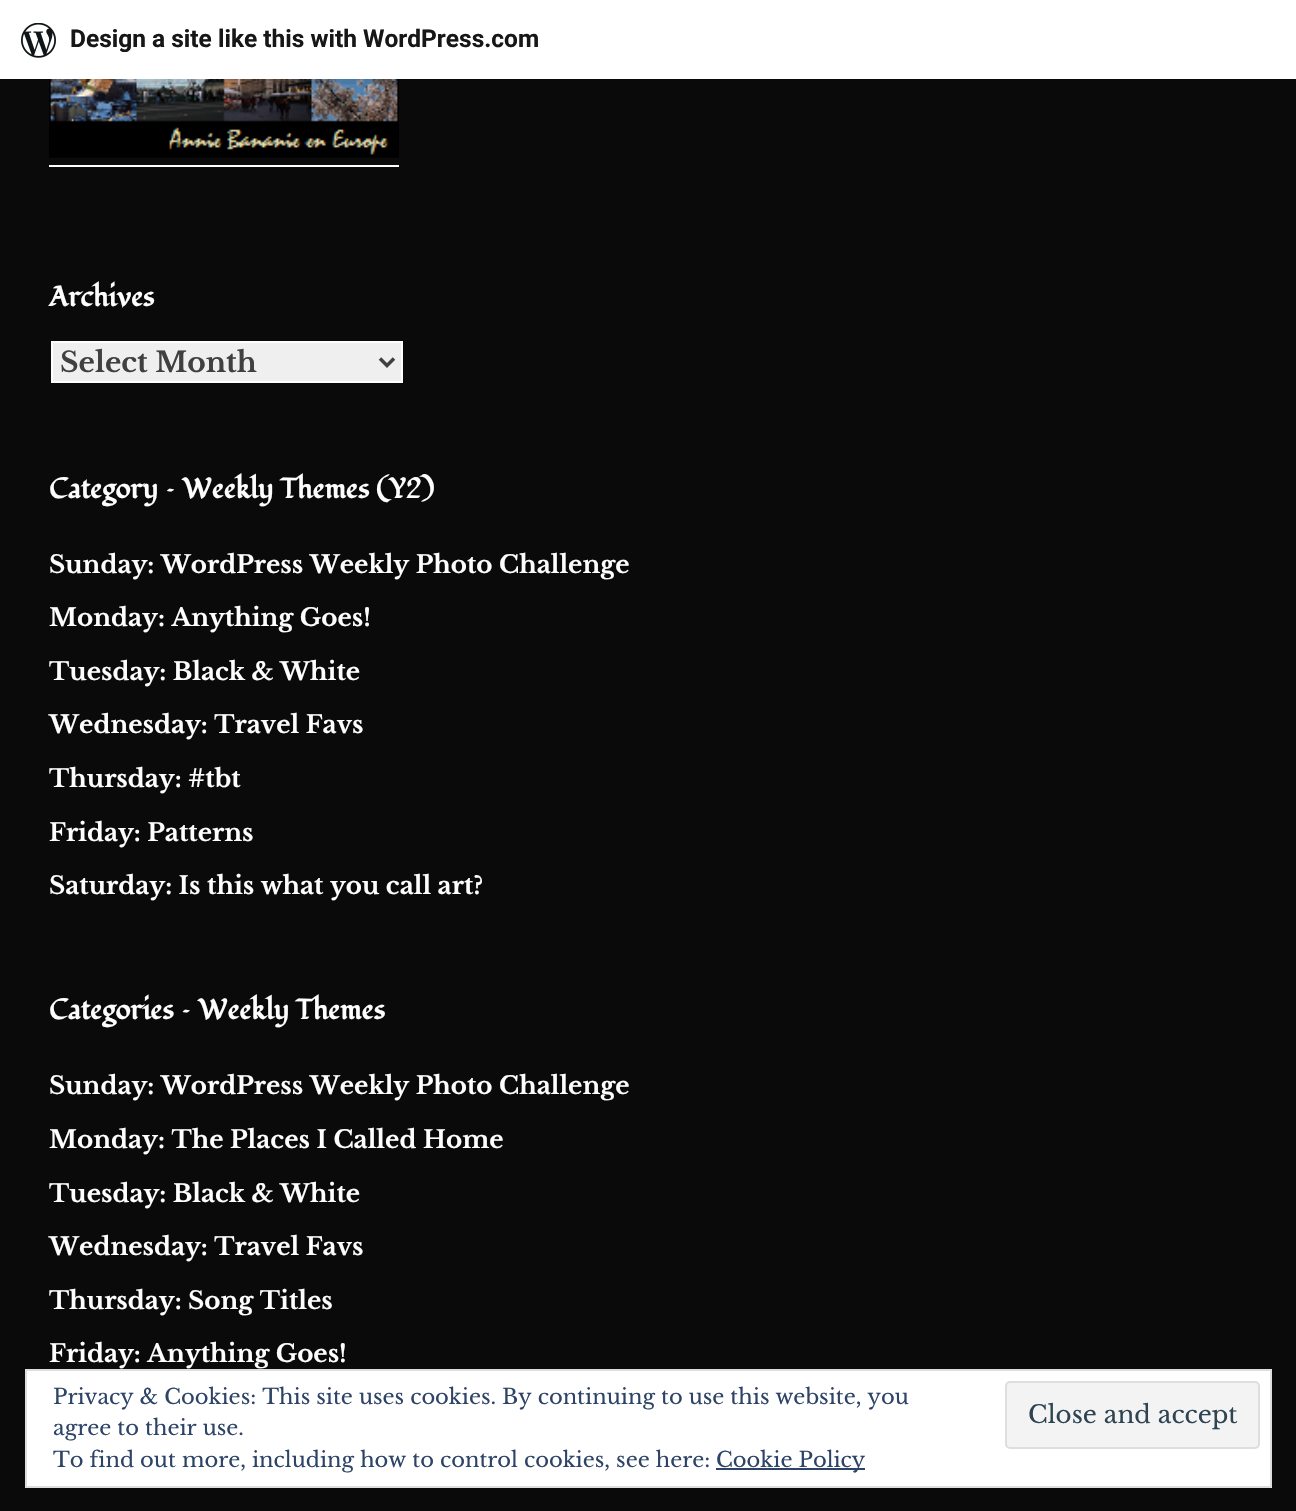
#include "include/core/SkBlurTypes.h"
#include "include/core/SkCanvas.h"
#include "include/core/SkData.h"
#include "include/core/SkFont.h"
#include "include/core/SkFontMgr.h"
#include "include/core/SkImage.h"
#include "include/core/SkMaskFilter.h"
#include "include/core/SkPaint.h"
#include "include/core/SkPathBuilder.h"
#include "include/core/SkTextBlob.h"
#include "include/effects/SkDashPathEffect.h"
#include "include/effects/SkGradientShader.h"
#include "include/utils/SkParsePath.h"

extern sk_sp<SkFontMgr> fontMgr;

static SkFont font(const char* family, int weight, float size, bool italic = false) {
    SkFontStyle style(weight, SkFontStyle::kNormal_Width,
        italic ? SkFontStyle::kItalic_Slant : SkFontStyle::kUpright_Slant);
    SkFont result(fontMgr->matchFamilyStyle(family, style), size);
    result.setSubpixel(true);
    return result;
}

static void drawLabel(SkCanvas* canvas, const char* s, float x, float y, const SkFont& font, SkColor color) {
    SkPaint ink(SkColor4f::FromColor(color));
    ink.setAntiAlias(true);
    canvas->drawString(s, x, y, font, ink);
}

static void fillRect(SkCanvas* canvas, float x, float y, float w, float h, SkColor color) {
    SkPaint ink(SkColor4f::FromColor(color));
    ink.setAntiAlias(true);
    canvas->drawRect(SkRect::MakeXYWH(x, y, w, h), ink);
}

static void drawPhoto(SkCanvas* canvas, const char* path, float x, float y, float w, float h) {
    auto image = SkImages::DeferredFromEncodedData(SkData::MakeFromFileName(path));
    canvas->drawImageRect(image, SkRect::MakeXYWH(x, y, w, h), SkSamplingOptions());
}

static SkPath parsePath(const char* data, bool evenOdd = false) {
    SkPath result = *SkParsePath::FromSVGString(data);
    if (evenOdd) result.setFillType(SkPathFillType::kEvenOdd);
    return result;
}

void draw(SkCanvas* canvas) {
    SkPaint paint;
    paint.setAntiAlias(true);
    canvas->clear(0xFF0A0A0A);
    drawPhoto(canvas, "assets/img2.png", 49, 79, 350, 79);
    paint.setColor(0x14000000);
    canvas->drawPath(parsePath("M2 79V84H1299V5H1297V79Z"), paint);
    fillRect(canvas, 0, 0, 1296, 79, 0xFFFFFFFF);
    drawPhoto(canvas, "assets/img1.png", 21, 23, 35, 35);
    SkFont font1 = font("Roboto", 700, 24.5f);
    drawLabel(canvas, "Design a site like this with WordPress.com", 70, 47, font1, 0xFF171717);
    fillRect(canvas, 49, 165, 350, 2, 0xFFFEFEFE);
    SkFont font2 = font("Fondamento", 700, 28);
    drawLabel(canvas, "Archives", 49, 306, font2, 0xFFFEFEFE);
    paint.setColor(0xFFEFEFEF);
    canvas->drawRect(SkRect::MakeXYWH(52, 342, 350, 40), paint);
    paint.setStroke(true);
    paint.setStrokeWidth(2);
    paint.setColor(0xFFFEFEFE);
    canvas->drawRect(SkRect::MakeXYWH(52, 342, 350, 40), paint);
    paint.setStrokeWidth(3.5f);
    paint.setColor(0xFF404040);
    canvas->drawPath(parsePath("M380 358.5L387 365.5L394 358.5"), paint);
    SkFont font3 = font("Libre Baskerville", 700, 28);
    drawLabel(canvas, "Select Month", 60, 372, font3, 0xFF404040);
    drawLabel(canvas, "Category – Weekly Themes (Y2)", 49, 498, font2, 0xFFFEFEFE);
    SkFont font4 = font("Libre Baskerville", 700, 24.5f);
    drawLabel(canvas, "Sunday: WordPress Weekly Photo Challenge", 49, 573, font4, 0xFFFEFEFE);
    drawLabel(canvas, "Monday: Anything Goes!", 49, 626, font4, 0xFFFEFEFE);
    drawLabel(canvas, "Tuesday: Black & White", 49, 680, font4, 0xFFFEFEFE);
    drawLabel(canvas, "Wednesday: Travel Favs", 49, 733, font4, 0xFFFEFEFE);
    drawLabel(canvas, "Thursday: #tbt", 49, 787, font4, 0xFFFEFEFE);
    drawLabel(canvas, "Friday: Patterns", 49, 841, font4, 0xFFFEFEFE);
    drawLabel(canvas, "Saturday: Is this what you call art?", 49, 894, font4, 0xFFFEFEFE);
    drawLabel(canvas, "Categories – Weekly Themes", 49, 1019, font2, 0xFFFEFEFE);
    drawLabel(canvas, "Sunday: WordPress Weekly Photo Challenge", 49, 1094, font4, 0xFFFEFEFE);
    drawLabel(canvas, "Monday: The Places I Called Home", 49, 1148, font4, 0xFFFEFEFE);
    drawLabel(canvas, "Tuesday: Black & White", 49, 1202, font4, 0xFFFEFEFE);
    drawLabel(canvas, "Wednesday: Travel Favs", 49, 1255, font4, 0xFFFEFEFE);
    drawLabel(canvas, "Thursday: Song Titles", 49, 1309, font4, 0xFFFEFEFE);
    drawLabel(canvas, "Friday: Anything Goes!", 49, 1362, font4, 0xFFFEFEFE);
    paint.setStroke(false);
    paint.setColor(0xFFFFFFFF);
    canvas->drawRect(SkRect::MakeXYWH(26, 1370, 1245, 117), paint);
    paint.setStroke(true);
    paint.setStrokeWidth(2);
    paint.setColor(0xFFDEDEDE);
    canvas->drawRect(SkRect::MakeXYWH(26, 1370, 1245, 117), paint);
    SkFont font5 = font("Libre Baskerville", 400, 21);
    drawLabel(canvas, "Privacy & Cookies: This site uses cookies. By continuing to use this website, you", 53, 1404, font5, 0xFF2E4467);
    drawLabel(canvas, "agree to their use.", 53, 1435, font5, 0xFF2E4467);
    paint.setStroke(false);
    paint.setColor(0xFFF3F3F3);
    canvas->drawRoundRect(SkRect::MakeXYWH(1006, 1382, 253, 66), 4, 4, paint);
    paint.setStroke(true);
    paint.setColor(0xFFDEDEDE);
    canvas->drawRoundRect(SkRect::MakeXYWH(1006, 1382, 253, 66), 4, 4, paint);
    SkFont font6 = font("Libre Baskerville", 400, 24.5f);
    drawLabel(canvas, "Close and accept", 1028, 1423, font6, 0xFF2E4453);
    drawLabel(canvas, "To find out more, including how to control cookies, see here:", 53, 1467, font5, 0xFF2E4467);
    fillRect(canvas, 716, 1468, 149, 2, 0xFF2E4467);
    drawLabel(canvas, "Cookie Policy", 716, 1467, font5, 0xFF2E4467);
}
